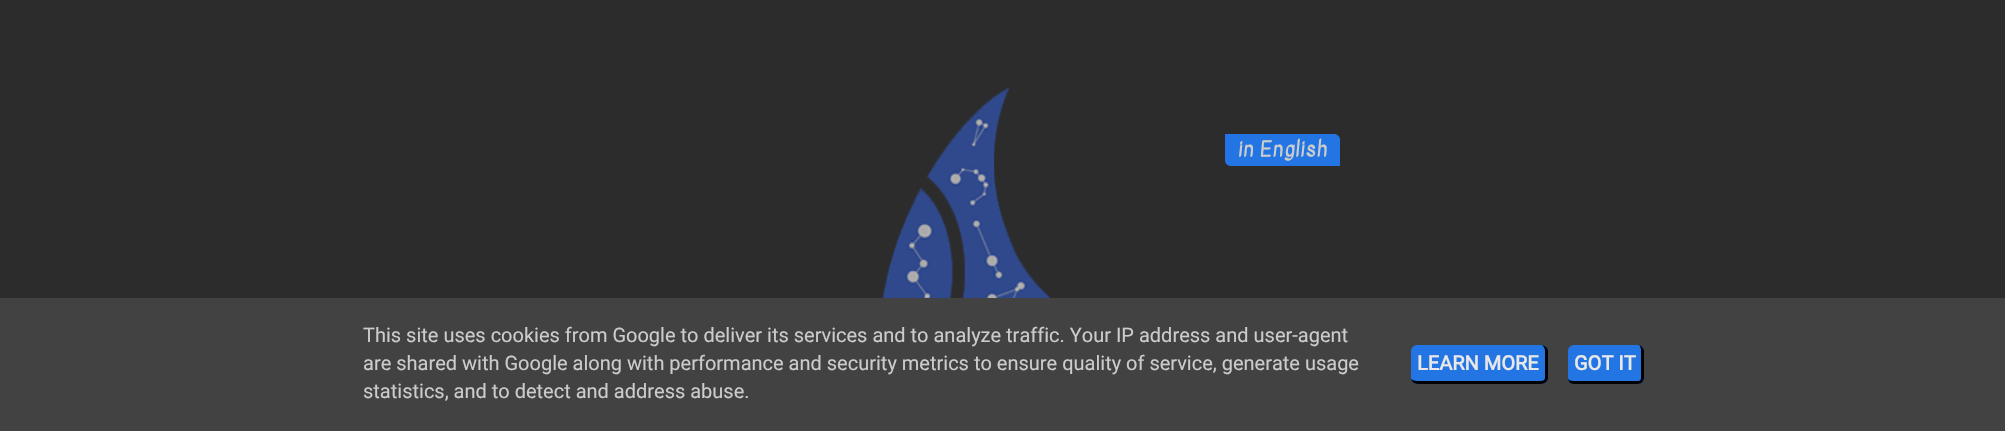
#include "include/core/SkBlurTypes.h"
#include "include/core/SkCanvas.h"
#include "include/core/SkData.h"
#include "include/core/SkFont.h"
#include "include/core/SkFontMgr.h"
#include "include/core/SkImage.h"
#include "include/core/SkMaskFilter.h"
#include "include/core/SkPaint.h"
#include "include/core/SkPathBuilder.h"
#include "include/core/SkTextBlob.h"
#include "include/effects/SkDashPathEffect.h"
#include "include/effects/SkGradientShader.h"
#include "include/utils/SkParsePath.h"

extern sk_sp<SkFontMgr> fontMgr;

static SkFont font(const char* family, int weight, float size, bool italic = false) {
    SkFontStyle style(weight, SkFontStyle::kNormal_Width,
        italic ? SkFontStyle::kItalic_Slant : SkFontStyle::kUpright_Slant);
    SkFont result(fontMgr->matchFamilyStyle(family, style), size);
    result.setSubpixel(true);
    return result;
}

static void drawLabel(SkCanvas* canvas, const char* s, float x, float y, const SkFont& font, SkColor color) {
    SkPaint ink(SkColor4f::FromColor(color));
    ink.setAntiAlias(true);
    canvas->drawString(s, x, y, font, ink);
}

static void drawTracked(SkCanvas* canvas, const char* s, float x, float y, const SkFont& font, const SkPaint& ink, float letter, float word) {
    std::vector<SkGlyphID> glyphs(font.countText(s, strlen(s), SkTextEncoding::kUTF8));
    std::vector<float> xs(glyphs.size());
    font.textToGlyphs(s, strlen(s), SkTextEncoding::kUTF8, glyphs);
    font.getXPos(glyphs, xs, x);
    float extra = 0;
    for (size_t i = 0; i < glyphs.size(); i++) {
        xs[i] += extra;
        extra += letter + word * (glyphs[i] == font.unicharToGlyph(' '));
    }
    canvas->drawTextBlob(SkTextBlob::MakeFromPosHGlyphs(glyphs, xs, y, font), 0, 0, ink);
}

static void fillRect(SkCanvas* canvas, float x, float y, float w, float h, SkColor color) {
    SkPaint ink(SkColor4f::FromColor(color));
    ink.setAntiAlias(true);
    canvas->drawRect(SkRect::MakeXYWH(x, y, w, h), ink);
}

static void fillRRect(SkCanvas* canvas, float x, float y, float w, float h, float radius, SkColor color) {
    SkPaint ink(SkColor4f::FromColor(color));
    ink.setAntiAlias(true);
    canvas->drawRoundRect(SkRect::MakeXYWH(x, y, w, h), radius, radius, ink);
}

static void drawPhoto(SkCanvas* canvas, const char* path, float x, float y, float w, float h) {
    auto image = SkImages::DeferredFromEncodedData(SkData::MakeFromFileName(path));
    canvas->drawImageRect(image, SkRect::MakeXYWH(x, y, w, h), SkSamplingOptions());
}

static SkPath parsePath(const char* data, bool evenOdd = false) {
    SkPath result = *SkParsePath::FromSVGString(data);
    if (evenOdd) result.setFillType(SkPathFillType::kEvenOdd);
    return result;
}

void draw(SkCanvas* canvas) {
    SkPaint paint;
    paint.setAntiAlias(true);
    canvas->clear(0xFF2C2C2C);
    drawPhoto(canvas, "assets/img1.png", 881, 87, 171, 211);
    paint.setColor(0xFF2275E3);
    canvas->drawPath(parsePath("M1225 134H1334C1337.5 134 1340 136.5 1340 140V166H1231C1227.5 166 1225 163.5 1225 160Z"), paint);
    SkFont font1 = font("Kavivanar", 700, 20);
    paint.setColor(0xFFCCCCCC);
    drawTracked(canvas, "in English", 1238, 156, font1, paint, 1.25f, 0);
    fillRect(canvas, 0, 298, 2005, 133, 0xFF424242);
    SkFont font2 = font("Roboto", 400, 20);
    drawLabel(canvas, "This site uses cookies from Google to deliver its services and to analyze traffic. Your IP address and user-agent", 363, 342, font2, 0xFFCCCCCC);
    drawLabel(canvas, "are shared with Google along with performance and security metrics to ensure quality of service, generate usage", 363, 370, font2, 0xFFCCCCCC);
    drawLabel(canvas, "statistics, and to detect and address abuse.", 363, 398, font2, 0xFFCCCCCC);
    fillRRect(canvas, 1411, 345, 137, 39, 6, 0xFF2275E3);
    paint.setColor(0xFF000000);
    canvas->drawPath(parsePath("M1418 345H1541C1545 345 1548 348 1548 351V378C1548 381 1545 384 1541 384H1418C1414 384 1411 381 1411 378V351C1411 348 1414 345 1418 345ZM1418 345H1541C1543 345 1545 348 1545 351V378C1545 380 1543 381 1541 381H1418C1414 381 1411 380 1411 378V351C1411 348 1414 345 1418 345Z", true), paint);
    SkFont font3 = font("Roboto", 700, 20);
    drawLabel(canvas, "LEARN MORE", 1417, 370, font3, 0xFFE8E8E8);
    fillRRect(canvas, 1568, 345, 76, 39, 6, 0xFF2275E3);
    canvas->drawPath(parsePath("M1574 345H1638C1641 345 1644 348 1644 351V378C1644 381 1641 384 1638 384H1574C1570 384 1568 381 1568 378V351C1568 348 1570 345 1574 345ZM1574 345H1638C1640 345 1641 348 1641 351V378C1641 380 1640 381 1638 381H1574C1570 381 1568 380 1568 378V351C1568 348 1570 345 1574 345Z", true), paint);
    drawLabel(canvas, "GOT IT", 1574, 370, font3, 0xFFE8E8E8);
}
